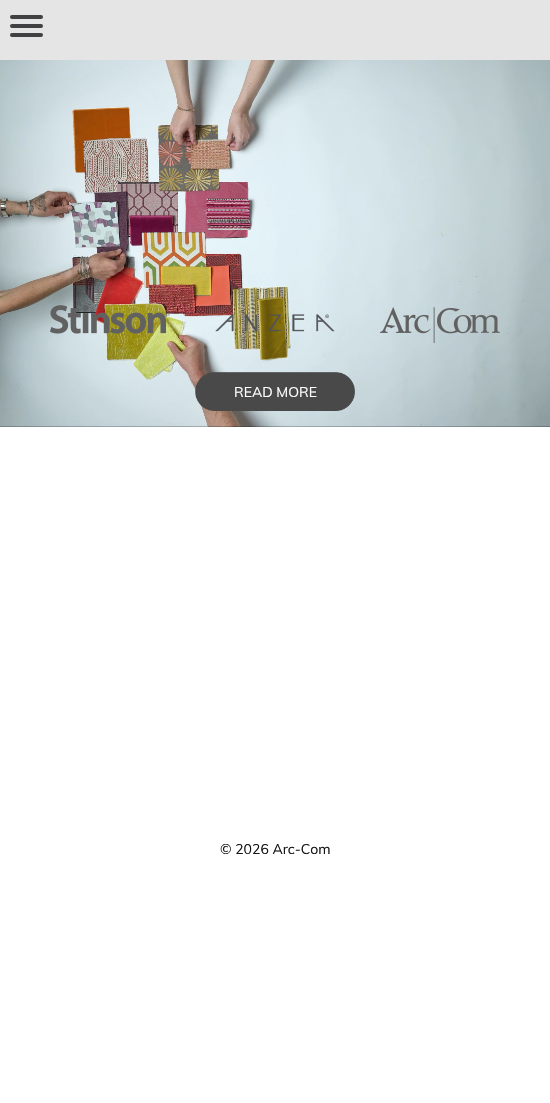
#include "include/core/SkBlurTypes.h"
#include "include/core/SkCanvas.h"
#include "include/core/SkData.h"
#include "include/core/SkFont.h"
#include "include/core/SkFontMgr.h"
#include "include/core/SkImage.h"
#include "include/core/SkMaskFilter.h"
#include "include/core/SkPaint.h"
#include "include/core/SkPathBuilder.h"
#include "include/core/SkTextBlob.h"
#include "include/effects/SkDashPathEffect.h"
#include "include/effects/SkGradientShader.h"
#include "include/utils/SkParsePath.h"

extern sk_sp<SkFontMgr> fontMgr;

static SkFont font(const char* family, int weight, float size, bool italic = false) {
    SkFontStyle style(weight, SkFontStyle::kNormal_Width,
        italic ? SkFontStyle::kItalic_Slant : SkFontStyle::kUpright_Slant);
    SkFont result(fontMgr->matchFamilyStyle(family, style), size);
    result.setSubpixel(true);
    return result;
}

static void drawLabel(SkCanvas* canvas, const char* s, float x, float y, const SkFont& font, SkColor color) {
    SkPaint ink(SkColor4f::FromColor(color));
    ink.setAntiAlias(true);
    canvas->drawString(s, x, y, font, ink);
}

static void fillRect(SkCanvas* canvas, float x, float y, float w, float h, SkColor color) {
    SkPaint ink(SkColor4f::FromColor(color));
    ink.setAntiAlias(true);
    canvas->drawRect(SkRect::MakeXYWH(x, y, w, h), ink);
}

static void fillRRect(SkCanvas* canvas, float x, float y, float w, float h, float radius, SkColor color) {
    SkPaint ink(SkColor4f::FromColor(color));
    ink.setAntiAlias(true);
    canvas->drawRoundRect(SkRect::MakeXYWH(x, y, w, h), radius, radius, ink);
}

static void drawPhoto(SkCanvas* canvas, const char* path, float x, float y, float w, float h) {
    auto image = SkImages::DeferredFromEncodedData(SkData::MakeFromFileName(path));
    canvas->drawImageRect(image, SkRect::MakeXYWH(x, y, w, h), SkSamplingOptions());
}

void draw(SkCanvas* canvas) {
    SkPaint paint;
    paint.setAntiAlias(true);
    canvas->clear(0xFFFFFFFF);
    fillRect(canvas, 0, 0, 550, 60, 0xFFE5E5E5);
    fillRRect(canvas, 10, 15, 33, 4, 2, 0xFF414042);
    fillRRect(canvas, 10, 24, 33, 4, 2, 0xFF414042);
    fillRRect(canvas, 10, 33, 33, 4, 2, 0xFF414042);
    drawPhoto(canvas, "assets/img1.png", 0, 60, 550, 367);
    drawPhoto(canvas, "assets/img2.png", 50, 305, 120, 29);
    drawPhoto(canvas, "assets/img3.png", 215, 314, 120, 18);
    drawPhoto(canvas, "assets/img4.png", 380, 307, 120, 36);
    drawPhoto(canvas, "assets/img5.png", 195, 372, 160, 39);
    SkFont font1 = font("Muli", 400, 14);
    drawLabel(canvas, "READ MORE", 234, 397, font1, 0xFFFEFFFF);
    drawLabel(canvas, "© 2026 Arc-Com", 220, 854, font1, 0xFF151515);
}
